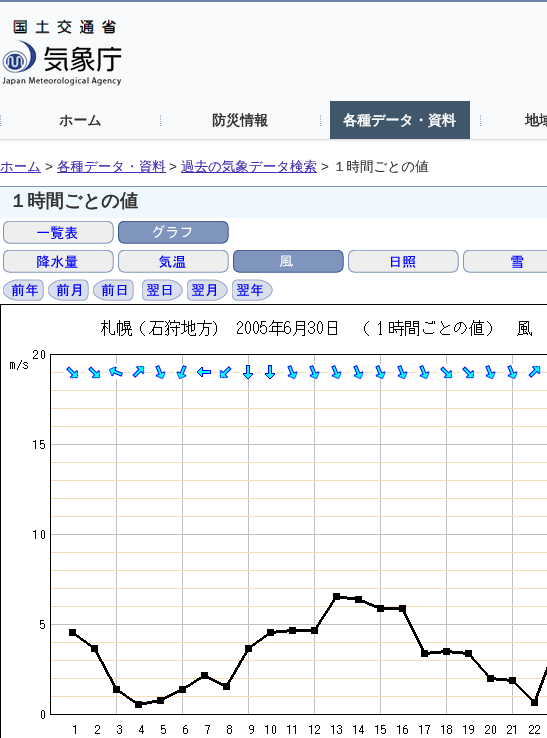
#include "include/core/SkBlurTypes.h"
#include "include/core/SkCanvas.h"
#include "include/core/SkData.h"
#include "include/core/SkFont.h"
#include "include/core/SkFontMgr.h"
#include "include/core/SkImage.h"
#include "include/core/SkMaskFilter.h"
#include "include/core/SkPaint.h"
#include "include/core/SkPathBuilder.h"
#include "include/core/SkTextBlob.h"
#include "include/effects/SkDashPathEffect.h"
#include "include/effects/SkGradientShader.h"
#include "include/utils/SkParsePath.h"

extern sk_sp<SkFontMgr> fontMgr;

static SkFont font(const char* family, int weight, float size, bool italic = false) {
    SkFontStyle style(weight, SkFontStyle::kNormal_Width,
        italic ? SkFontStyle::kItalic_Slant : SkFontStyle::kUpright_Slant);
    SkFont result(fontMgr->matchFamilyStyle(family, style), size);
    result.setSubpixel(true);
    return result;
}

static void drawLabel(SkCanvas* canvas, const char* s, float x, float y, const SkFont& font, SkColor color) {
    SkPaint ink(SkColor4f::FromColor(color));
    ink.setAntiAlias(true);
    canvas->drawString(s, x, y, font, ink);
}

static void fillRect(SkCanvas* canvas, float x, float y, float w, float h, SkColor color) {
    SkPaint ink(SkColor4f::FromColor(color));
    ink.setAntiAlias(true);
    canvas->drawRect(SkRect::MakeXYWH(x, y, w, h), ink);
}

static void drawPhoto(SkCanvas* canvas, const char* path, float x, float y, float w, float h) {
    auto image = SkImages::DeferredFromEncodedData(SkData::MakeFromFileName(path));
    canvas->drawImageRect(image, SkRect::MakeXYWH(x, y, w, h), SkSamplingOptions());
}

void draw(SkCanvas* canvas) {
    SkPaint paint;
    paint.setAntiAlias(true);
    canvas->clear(0xFFF9FAFB);
    drawPhoto(canvas, "assets/img1.png", 0, 139, 547, 2);
    fillRect(canvas, 0, 0, 547, 2, 0xFF7182AF);
    drawPhoto(canvas, "assets/img2.png", 2, 19, 120, 67);
    drawPhoto(canvas, "assets/img3.png", 0, 115, 1, 11);
    SkFont font1 = font("WenQuanYi Zen Hei", 700, 14);
    drawLabel(canvas, "ホーム", 59, 125, font1, 0xFF333333);
    drawPhoto(canvas, "assets/img3.png", 160, 115, 1, 11);
    drawLabel(canvas, "防災情報", 212, 125, font1, 0xFF333333);
    drawPhoto(canvas, "assets/img3.png", 320, 115, 1, 11);
    fillRect(canvas, 330, 101, 140, 38, 0xFF40566A);
    drawLabel(canvas, "各種データ・資料", 343, 125, font1, 0xFFFFFFFF);
    drawPhoto(canvas, "assets/img3.png", 480, 115, 1, 11);
    drawLabel(canvas, "地域", 525, 125, font1, 0xFF333333);
    fillRect(canvas, 0, 142, 547, 162, 0xFFFFFFFF);
    fillRect(canvas, 0, 172, 41, 1, 0xFF432DB2);
    SkFont font2 = font("WenQuanYi Zen Hei", 500, 13.5f);
    drawLabel(canvas, "ホーム", 0, 171, font2, 0xFF432DB2);
    SkFont font3 = font("Liberation Sans", 400, 13.5f);
    drawLabel(canvas, ">", 45, 171, font3, 0xFF333333);
    fillRect(canvas, 57, 172, 109, 1, 0xFF432DB2);
    drawLabel(canvas, "各種データ・資料", 57, 171, font2, 0xFF432DB2);
    drawLabel(canvas, ">", 169, 171, font3, 0xFF333333);
    fillRect(canvas, 181, 172, 136, 1, 0xFF432DB2);
    drawLabel(canvas, "過去の気象データ検索", 181, 171, font2, 0xFF432DB2);
    drawLabel(canvas, ">", 321, 171, font3, 0xFF333333);
    drawLabel(canvas, "１時間ごとの値", 333, 171, font2, 0xFF333333);
    fillRect(canvas, 0, 187, 547, 31, 0xFFF0F8FF);
    fillRect(canvas, 0, 186, 547, 1, 0xFF7F95BD);
    SkFont font4 = font("WenQuanYi Zen Hei", 700, 18.25f);
    drawLabel(canvas, "１時間ごとの値", 9, 207, font4, 0xFF333333);
    drawPhoto(canvas, "assets/img4.png", 3, 221, 111, 23);
    drawPhoto(canvas, "assets/img5.png", 118, 221, 111, 23);
    drawPhoto(canvas, "assets/img6.png", 3, 250, 111, 23);
    drawPhoto(canvas, "assets/img7.png", 118, 250, 111, 23);
    drawPhoto(canvas, "assets/img8.png", 233, 250, 111, 23);
    drawPhoto(canvas, "assets/img9.png", 348, 250, 111, 23);
    drawPhoto(canvas, "assets/img10.png", 463, 250, 84, 23);
    drawPhoto(canvas, "assets/img11.png", 3, 279, 41, 22);
    drawPhoto(canvas, "assets/img12.png", 48, 279, 41, 22);
    drawPhoto(canvas, "assets/img13.png", 93, 279, 41, 22);
    drawPhoto(canvas, "assets/img14.png", 142, 279, 41, 22);
    drawPhoto(canvas, "assets/img15.png", 187, 279, 41, 22);
    drawPhoto(canvas, "assets/img16.png", 232, 279, 41, 22);
    drawPhoto(canvas, "assets/img17.png", 0, 304, 547, 434);
}
